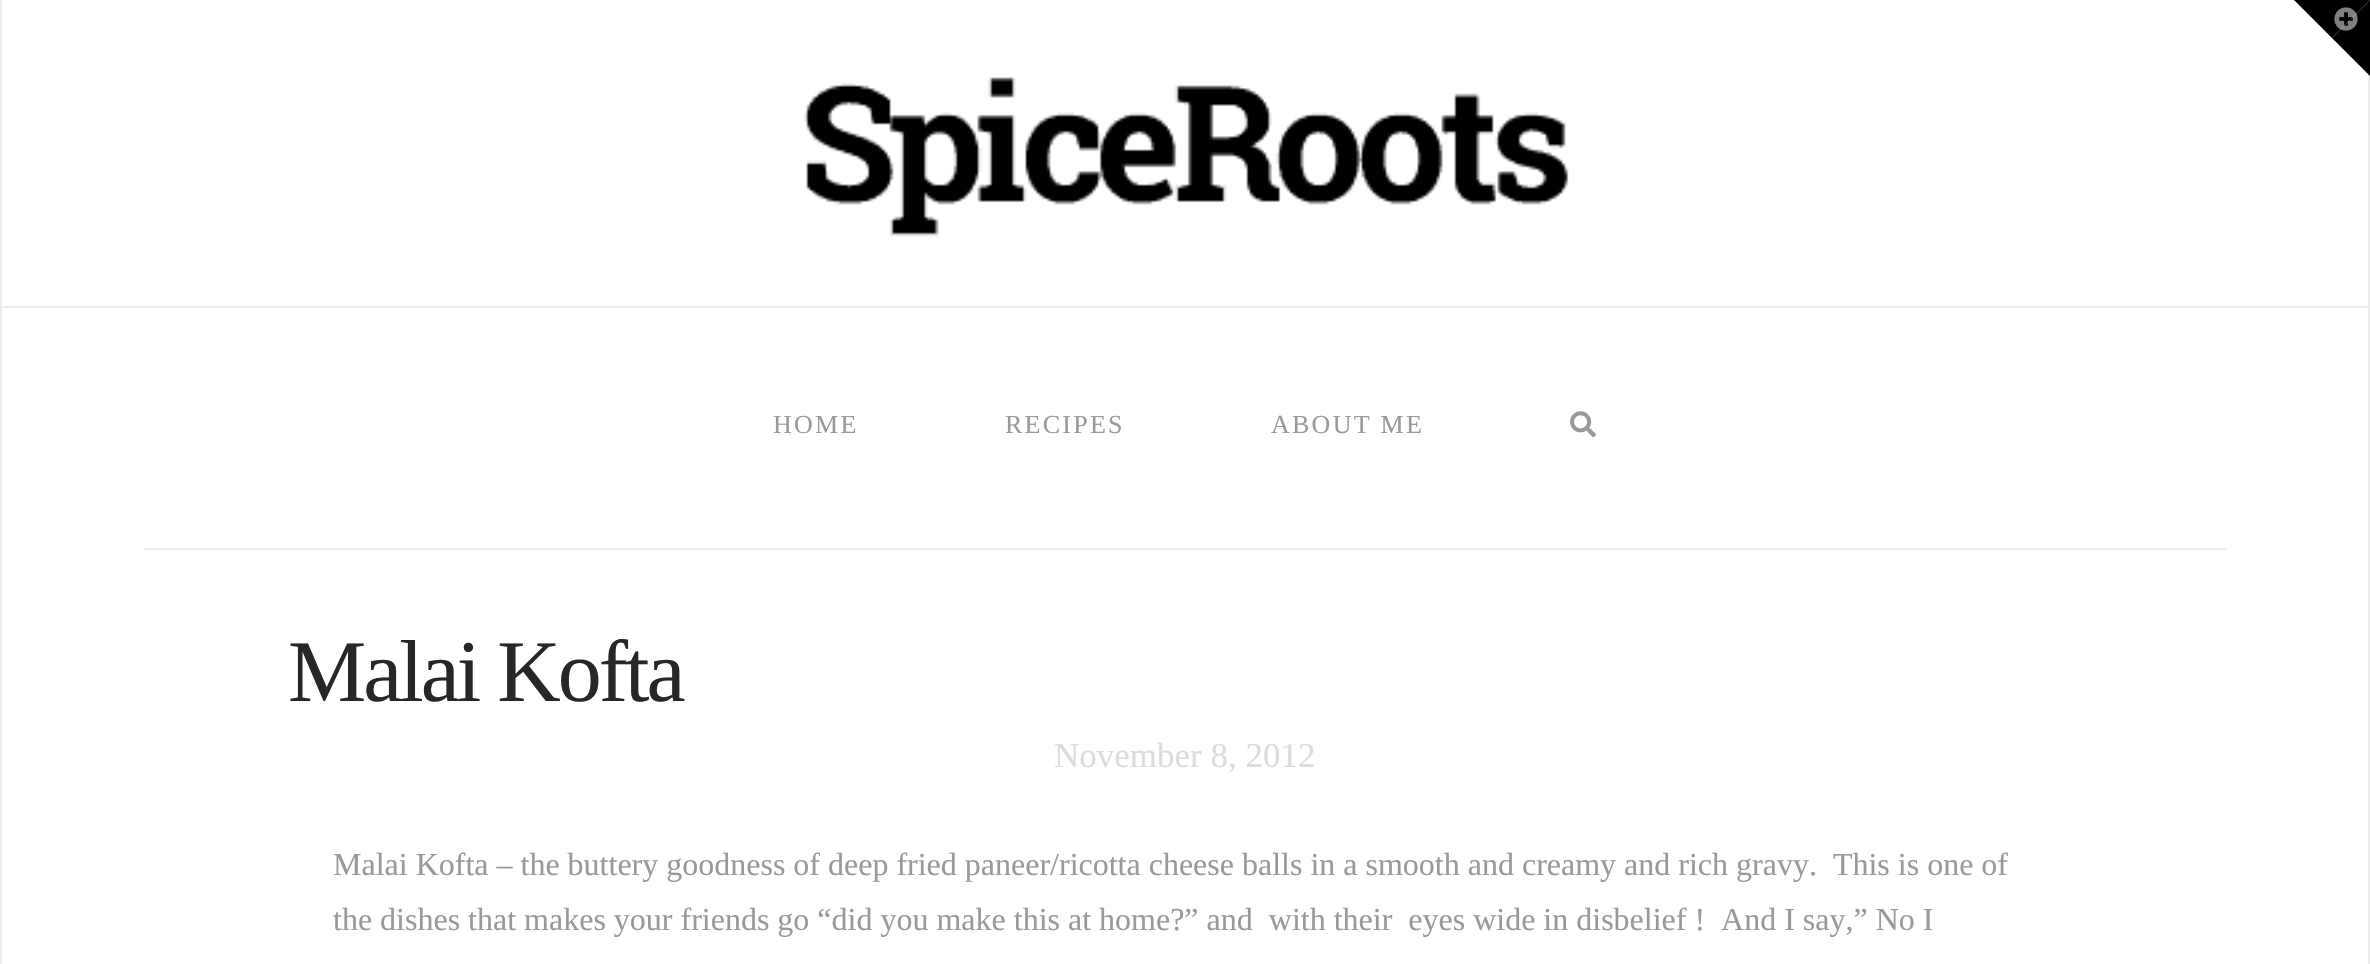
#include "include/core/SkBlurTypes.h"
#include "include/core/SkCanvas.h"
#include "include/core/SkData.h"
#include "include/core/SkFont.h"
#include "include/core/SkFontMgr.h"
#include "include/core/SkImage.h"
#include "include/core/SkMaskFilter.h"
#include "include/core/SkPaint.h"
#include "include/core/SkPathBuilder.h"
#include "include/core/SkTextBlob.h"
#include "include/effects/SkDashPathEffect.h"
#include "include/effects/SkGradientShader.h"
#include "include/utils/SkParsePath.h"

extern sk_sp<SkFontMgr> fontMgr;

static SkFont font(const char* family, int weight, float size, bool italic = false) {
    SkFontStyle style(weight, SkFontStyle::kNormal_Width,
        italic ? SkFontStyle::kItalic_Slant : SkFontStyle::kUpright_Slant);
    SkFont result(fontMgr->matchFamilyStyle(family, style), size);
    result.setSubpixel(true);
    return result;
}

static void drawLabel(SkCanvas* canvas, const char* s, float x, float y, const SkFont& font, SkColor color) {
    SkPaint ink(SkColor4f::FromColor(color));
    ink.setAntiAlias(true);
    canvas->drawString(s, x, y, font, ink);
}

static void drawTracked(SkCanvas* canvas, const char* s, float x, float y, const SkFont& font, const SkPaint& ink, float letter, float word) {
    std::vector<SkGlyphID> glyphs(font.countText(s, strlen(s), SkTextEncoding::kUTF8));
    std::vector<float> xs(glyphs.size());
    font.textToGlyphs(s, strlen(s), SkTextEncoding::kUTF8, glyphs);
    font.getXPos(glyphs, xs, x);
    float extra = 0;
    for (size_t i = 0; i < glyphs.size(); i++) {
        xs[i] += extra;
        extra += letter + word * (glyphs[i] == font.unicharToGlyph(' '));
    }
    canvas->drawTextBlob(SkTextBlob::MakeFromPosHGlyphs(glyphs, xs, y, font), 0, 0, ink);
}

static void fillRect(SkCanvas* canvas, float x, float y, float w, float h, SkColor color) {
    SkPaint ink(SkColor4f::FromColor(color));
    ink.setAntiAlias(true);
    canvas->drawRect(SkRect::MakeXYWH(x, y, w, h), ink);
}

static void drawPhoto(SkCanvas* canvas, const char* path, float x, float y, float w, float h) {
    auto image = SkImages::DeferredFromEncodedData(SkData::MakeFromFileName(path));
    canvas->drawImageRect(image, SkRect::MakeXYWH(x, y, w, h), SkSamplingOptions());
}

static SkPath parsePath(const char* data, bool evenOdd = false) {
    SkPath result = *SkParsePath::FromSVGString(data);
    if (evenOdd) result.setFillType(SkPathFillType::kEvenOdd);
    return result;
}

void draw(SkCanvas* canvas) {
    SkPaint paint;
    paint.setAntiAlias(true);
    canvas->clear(0xFFFFFFFF);
    fillRect(canvas, 2368, 0, 2, 964, 0xFFECECEC);
    paint.setColor(0xFF000000);
    canvas->drawPath(parsePath("M2294 0H2370L2332 38Z"), paint);
    canvas->drawPath(parsePath("M2370 0V76L2332 38Z"), paint);
    drawPhoto(canvas, "assets/img1.png", 2334, 7, 24, 24);
    fillRect(canvas, 0, 0, 2, 964, 0xFFECECEC);
    fillRect(canvas, 2, 306, 2366, 2, 0xFFECECEC);
    drawPhoto(canvas, "assets/img2.png", 804, 77, 765, 160);
    fillRect(canvas, 144, 548, 2082, 2, 0xFFECECEC);
    SkFont font1 = font("Liberation Serif", 400, 26);
    paint.setColor(0xFF999999);
    drawTracked(canvas, "HOME", 773, 433, font1, paint, 2.25f, 0);
    drawTracked(canvas, "RECIPES", 1005, 433, font1, paint, 2.25f, 0);
    drawTracked(canvas, "ABOUT ME", 1271, 433, font1, paint, 2.25f, 0);
    drawPhoto(canvas, "assets/img3.png", 1570, 411, 26, 27);
    SkFont font2 = font("Liberation Serif", 400, 88);
    paint.setColor(0xFF272727);
    drawTracked(canvas, "Malai Kofta", 288, 701, font2, paint, -3, 0);
    SkFont font3 = font("Liberation Serif", 400, 35);
    drawLabel(canvas, "November 8, 2012", 1054, 767, font3, 0xFFDBDBDB);
    SkFont font4 = font("Liberation Serif", 400, 32);
    drawLabel(canvas, "Malai Kofta – the buttery goodness of deep fried paneer/ricotta cheese balls in a smooth and creamy and rich gravy.  This is one of", 333, 875, font4, 0xFF999999);
    drawLabel(canvas, "the dishes that makes your friends go “did you make this at home?” and  with their  eyes wide in disbelief !  And I say,” No I", 333, 930, font4, 0xFF999999);
}
